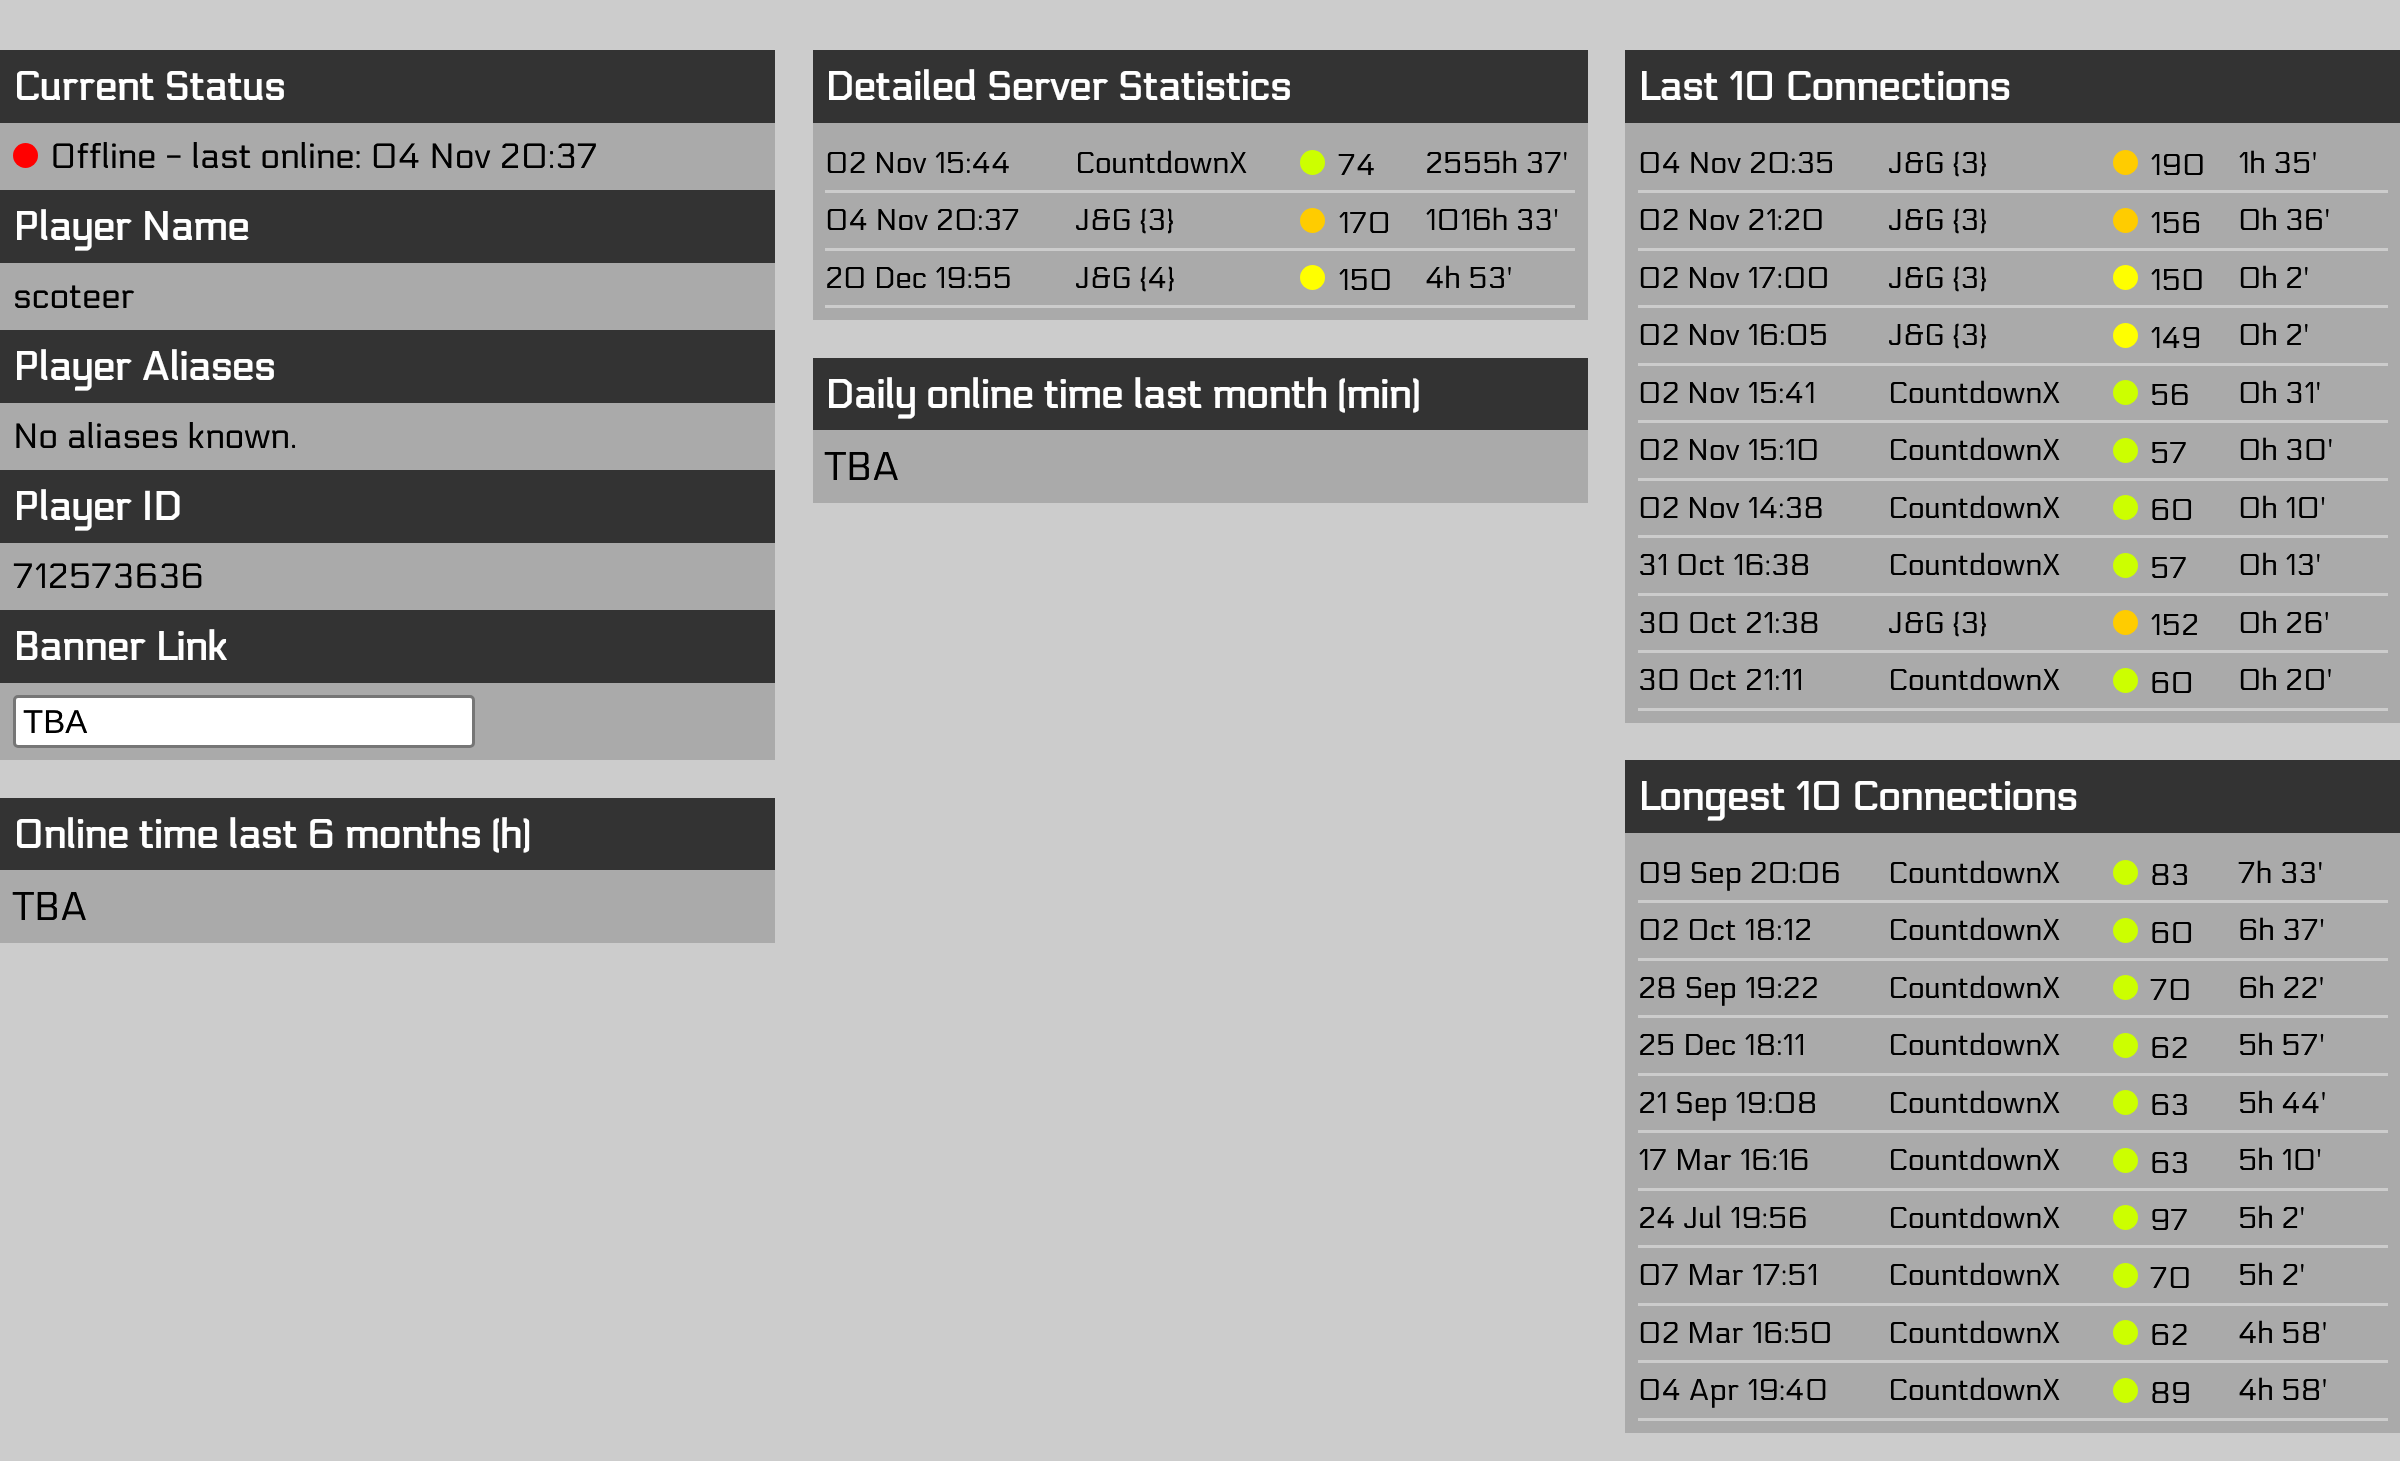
#include "include/core/SkBlurTypes.h"
#include "include/core/SkCanvas.h"
#include "include/core/SkData.h"
#include "include/core/SkFont.h"
#include "include/core/SkFontMgr.h"
#include "include/core/SkImage.h"
#include "include/core/SkMaskFilter.h"
#include "include/core/SkPaint.h"
#include "include/core/SkPathBuilder.h"
#include "include/core/SkTextBlob.h"
#include "include/effects/SkDashPathEffect.h"
#include "include/effects/SkGradientShader.h"
#include "include/utils/SkParsePath.h"

extern sk_sp<SkFontMgr> fontMgr;

static SkFont font(const char* family, int weight, float size, bool italic = false) {
    SkFontStyle style(weight, SkFontStyle::kNormal_Width,
        italic ? SkFontStyle::kItalic_Slant : SkFontStyle::kUpright_Slant);
    SkFont result(fontMgr->matchFamilyStyle(family, style), size);
    result.setSubpixel(true);
    return result;
}

static void drawLabel(SkCanvas* canvas, const char* s, float x, float y, const SkFont& font, SkColor color) {
    SkPaint ink(SkColor4f::FromColor(color));
    ink.setAntiAlias(true);
    canvas->drawString(s, x, y, font, ink);
}

static void fillRect(SkCanvas* canvas, float x, float y, float w, float h, SkColor color) {
    SkPaint ink(SkColor4f::FromColor(color));
    ink.setAntiAlias(true);
    canvas->drawRect(SkRect::MakeXYWH(x, y, w, h), ink);
}

void draw(SkCanvas* canvas) {
    SkPaint paint;
    paint.setAntiAlias(true);
    canvas->clear(0xFFCCCCCC);
    fillRect(canvas, 0, 123, 775, 637, 0xFFAAAAAA);
    fillRect(canvas, 0, 50, 775, 73, 0xFF333333);
    SkFont font1 = font("Electrolize", 700, 40);
    drawLabel(canvas, "Current Status", 13, 100, font1, 0xFFFFFFFF);
    paint.setColor(0xFFFF0000);
    canvas->drawCircle(25.5f, 155.5f, 12.5f, paint);
    SkFont font2 = font("Electrolize", 400, 35);
    drawLabel(canvas, "Offline - last online: 04 Nov 20:37", 50, 168, font2, 0xFF000000);
    fillRect(canvas, 0, 190, 775, 73, 0xFF333333);
    drawLabel(canvas, "Player Name", 13, 240, font1, 0xFFFFFFFF);
    drawLabel(canvas, "scoteer", 13, 308, font2, 0xFF000000);
    fillRect(canvas, 0, 330, 775, 73, 0xFF333333);
    drawLabel(canvas, "Player Aliases", 13, 380, font1, 0xFFFFFFFF);
    drawLabel(canvas, "No aliases known.", 13, 448, font2, 0xFF000000);
    fillRect(canvas, 0, 470, 775, 73, 0xFF333333);
    drawLabel(canvas, "Player ID", 13, 520, font1, 0xFFFFFFFF);
    drawLabel(canvas, "712573636", 13, 588, font2, 0xFF000000);
    fillRect(canvas, 0, 610, 775, 73, 0xFF333333);
    drawLabel(canvas, "Banner Link", 13, 660, font1, 0xFFFFFFFF);
    paint.setColor(0xFFFFFFFF);
    canvas->drawRoundRect(SkRect::MakeXYWH(14.5f, 696.5f, 459, 50), 3.5f, 3.5f, paint);
    paint.setStroke(true);
    paint.setStrokeWidth(3);
    paint.setColor(0xFF767676);
    canvas->drawRoundRect(SkRect::MakeXYWH(14.5f, 696.5f, 459, 50), 3.5f, 3.5f, paint);
    SkFont font3 = font("Liberation Sans", 400, 33);
    drawLabel(canvas, "TBA", 23, 733, font3, 0xFF000000);
    fillRect(canvas, 0, 870, 775, 73, 0xFFAAAAAA);
    fillRect(canvas, 0, 798, 775, 72, 0xFF333333);
    drawLabel(canvas, "Online time last 6 months (h)", 13, 848, font1, 0xFFFFFFFF);
    SkFont font4 = font("Electrolize", 400, 40);
    drawLabel(canvas, "TBA", 13, 920, font4, 0xFF000000);
    fillRect(canvas, 813, 123, 775, 197, 0xFFAAAAAA);
    fillRect(canvas, 813, 50, 775, 73, 0xFF333333);
    drawLabel(canvas, "Detailed Server Statistics", 825, 100, font1, 0xFFFFFFFF);
    fillRect(canvas, 825, 190, 750, 3, 0xFFCCCCCC);
    SkFont font5 = font("Electrolize", 400, 30);
    drawLabel(canvas, "02 Nov 15:44", 825, 173, font5, 0xFF000000);
    drawLabel(canvas, "CountdownX", 1075, 173, font5, 0xFF000000);
    paint.setStroke(false);
    paint.setColor(0xFFCCFF00);
    canvas->drawCircle(1312.5f, 162.5f, 12.5f, paint);
    drawLabel(canvas, "74", 1338, 175, font5, 0xFF000000);
    drawLabel(canvas, "2555h 37'", 1425, 173, font5, 0xFF000000);
    fillRect(canvas, 825, 248, 750, 3, 0xFFCCCCCC);
    drawLabel(canvas, "04 Nov 20:37", 825, 230, font5, 0xFF000000);
    drawLabel(canvas, "J&G {3}", 1075, 230, font5, 0xFF000000);
    paint.setColor(0xFFFFCC00);
    canvas->drawCircle(1312.5f, 220.5f, 12.5f, paint);
    drawLabel(canvas, "170", 1338, 233, font5, 0xFF000000);
    drawLabel(canvas, "1016h 33'", 1425, 230, font5, 0xFF000000);
    fillRect(canvas, 825, 305, 750, 3, 0xFFCCCCCC);
    drawLabel(canvas, "20 Dec 19:55", 825, 288, font5, 0xFF000000);
    drawLabel(canvas, "J&G {4}", 1075, 288, font5, 0xFF000000);
    paint.setColor(0xFFFFFF00);
    canvas->drawCircle(1312.5f, 277.5f, 12.5f, paint);
    drawLabel(canvas, "150", 1338, 290, font5, 0xFF000000);
    drawLabel(canvas, "4h 53'", 1425, 288, font5, 0xFF000000);
    fillRect(canvas, 813, 430, 775, 73, 0xFFAAAAAA);
    fillRect(canvas, 813, 358, 775, 72, 0xFF333333);
    drawLabel(canvas, "Daily online time last month (min)", 825, 408, font1, 0xFFFFFFFF);
    drawLabel(canvas, "TBA", 825, 480, font4, 0xFF000000);
    fillRect(canvas, 1625, 123, 775, 600, 0xFFAAAAAA);
    fillRect(canvas, 1625, 50, 775, 73, 0xFF333333);
    drawLabel(canvas, "Last 10 Connections", 1638, 100, font1, 0xFFFFFFFF);
    fillRect(canvas, 1638, 190, 750, 3, 0xFFCCCCCC);
    drawLabel(canvas, "04 Nov 20:35", 1638, 173, font5, 0xFF000000);
    drawLabel(canvas, "J&G {3}", 1888, 173, font5, 0xFF000000);
    paint.setColor(0xFFFFCC00);
    canvas->drawCircle(2125.5f, 162.5f, 12.5f, paint);
    drawLabel(canvas, "190", 2150, 175, font5, 0xFF000000);
    drawLabel(canvas, "1h 35'", 2238, 173, font5, 0xFF000000);
    fillRect(canvas, 1638, 248, 750, 3, 0xFFCCCCCC);
    drawLabel(canvas, "02 Nov 21:20", 1638, 230, font5, 0xFF000000);
    drawLabel(canvas, "J&G {3}", 1888, 230, font5, 0xFF000000);
    canvas->drawCircle(2125.5f, 220.5f, 12.5f, paint);
    drawLabel(canvas, "156", 2150, 233, font5, 0xFF000000);
    drawLabel(canvas, "0h 36'", 2238, 230, font5, 0xFF000000);
    fillRect(canvas, 1638, 305, 750, 3, 0xFFCCCCCC);
    drawLabel(canvas, "02 Nov 17:00", 1638, 288, font5, 0xFF000000);
    drawLabel(canvas, "J&G {3}", 1888, 288, font5, 0xFF000000);
    paint.setColor(0xFFFFFF00);
    canvas->drawCircle(2125.5f, 277.5f, 12.5f, paint);
    drawLabel(canvas, "150", 2150, 290, font5, 0xFF000000);
    drawLabel(canvas, "0h 2'", 2238, 288, font5, 0xFF000000);
    fillRect(canvas, 1638, 363, 750, 3, 0xFFCCCCCC);
    drawLabel(canvas, "02 Nov 16:05", 1638, 345, font5, 0xFF000000);
    drawLabel(canvas, "J&G {3}", 1888, 345, font5, 0xFF000000);
    canvas->drawCircle(2125.5f, 335.5f, 12.5f, paint);
    drawLabel(canvas, "149", 2150, 348, font5, 0xFF000000);
    drawLabel(canvas, "0h 2'", 2238, 345, font5, 0xFF000000);
    fillRect(canvas, 1638, 420, 750, 3, 0xFFCCCCCC);
    drawLabel(canvas, "02 Nov 15:41", 1638, 403, font5, 0xFF000000);
    drawLabel(canvas, "CountdownX", 1888, 403, font5, 0xFF000000);
    paint.setColor(0xFFCCFF00);
    canvas->drawCircle(2125.5f, 392.5f, 12.5f, paint);
    drawLabel(canvas, "56", 2150, 405, font5, 0xFF000000);
    drawLabel(canvas, "0h 31'", 2238, 403, font5, 0xFF000000);
    fillRect(canvas, 1638, 478, 750, 3, 0xFFCCCCCC);
    drawLabel(canvas, "02 Nov 15:10", 1638, 460, font5, 0xFF000000);
    drawLabel(canvas, "CountdownX", 1888, 460, font5, 0xFF000000);
    canvas->drawCircle(2125.5f, 450.5f, 12.5f, paint);
    drawLabel(canvas, "57", 2150, 463, font5, 0xFF000000);
    drawLabel(canvas, "0h 30'", 2238, 460, font5, 0xFF000000);
    fillRect(canvas, 1638, 535, 750, 3, 0xFFCCCCCC);
    drawLabel(canvas, "02 Nov 14:38", 1638, 518, font5, 0xFF000000);
    drawLabel(canvas, "CountdownX", 1888, 518, font5, 0xFF000000);
    canvas->drawCircle(2125.5f, 507.5f, 12.5f, paint);
    drawLabel(canvas, "60", 2150, 520, font5, 0xFF000000);
    drawLabel(canvas, "0h 10'", 2238, 518, font5, 0xFF000000);
    fillRect(canvas, 1638, 593, 750, 3, 0xFFCCCCCC);
    drawLabel(canvas, "31 Oct 16:38", 1638, 575, font5, 0xFF000000);
    drawLabel(canvas, "CountdownX", 1888, 575, font5, 0xFF000000);
    canvas->drawCircle(2125.5f, 565.5f, 12.5f, paint);
    drawLabel(canvas, "57", 2150, 578, font5, 0xFF000000);
    drawLabel(canvas, "0h 13'", 2238, 575, font5, 0xFF000000);
    fillRect(canvas, 1638, 650, 750, 3, 0xFFCCCCCC);
    drawLabel(canvas, "30 Oct 21:38", 1638, 633, font5, 0xFF000000);
    drawLabel(canvas, "J&G {3}", 1888, 633, font5, 0xFF000000);
    paint.setColor(0xFFFFCC00);
    canvas->drawCircle(2125.5f, 622.5f, 12.5f, paint);
    drawLabel(canvas, "152", 2150, 635, font5, 0xFF000000);
    drawLabel(canvas, "0h 26'", 2238, 633, font5, 0xFF000000);
    fillRect(canvas, 1638, 708, 750, 3, 0xFFCCCCCC);
    drawLabel(canvas, "30 Oct 21:11", 1638, 690, font5, 0xFF000000);
    drawLabel(canvas, "CountdownX", 1888, 690, font5, 0xFF000000);
    paint.setColor(0xFFCCFF00);
    canvas->drawCircle(2125.5f, 680.5f, 12.5f, paint);
    drawLabel(canvas, "60", 2150, 693, font5, 0xFF000000);
    drawLabel(canvas, "0h 20'", 2238, 690, font5, 0xFF000000);
    fillRect(canvas, 1625, 833, 775, 600, 0xFFAAAAAA);
    fillRect(canvas, 1625, 760, 775, 73, 0xFF333333);
    drawLabel(canvas, "Longest 10 Connections", 1638, 810, font1, 0xFFFFFFFF);
    fillRect(canvas, 1638, 900, 750, 3, 0xFFCCCCCC);
    drawLabel(canvas, "09 Sep 20:06", 1638, 883, font5, 0xFF000000);
    drawLabel(canvas, "CountdownX", 1888, 883, font5, 0xFF000000);
    canvas->drawCircle(2125.5f, 872.5f, 12.5f, paint);
    drawLabel(canvas, "83", 2150, 885, font5, 0xFF000000);
    drawLabel(canvas, "7h 33'", 2238, 883, font5, 0xFF000000);
    fillRect(canvas, 1638, 958, 750, 3, 0xFFCCCCCC);
    drawLabel(canvas, "02 Oct 18:12", 1638, 940, font5, 0xFF000000);
    drawLabel(canvas, "CountdownX", 1888, 940, font5, 0xFF000000);
    canvas->drawCircle(2125.5f, 930.5f, 12.5f, paint);
    drawLabel(canvas, "60", 2150, 943, font5, 0xFF000000);
    drawLabel(canvas, "6h 37'", 2238, 940, font5, 0xFF000000);
    fillRect(canvas, 1638, 1015, 750, 3, 0xFFCCCCCC);
    drawLabel(canvas, "28 Sep 19:22", 1638, 998, font5, 0xFF000000);
    drawLabel(canvas, "CountdownX", 1888, 998, font5, 0xFF000000);
    canvas->drawCircle(2125.5f, 987.5f, 12.5f, paint);
    drawLabel(canvas, "70", 2150, 1000, font5, 0xFF000000);
    drawLabel(canvas, "6h 22'", 2238, 998, font5, 0xFF000000);
    fillRect(canvas, 1638, 1073, 750, 3, 0xFFCCCCCC);
    drawLabel(canvas, "25 Dec 18:11", 1638, 1055, font5, 0xFF000000);
    drawLabel(canvas, "CountdownX", 1888, 1055, font5, 0xFF000000);
    canvas->drawCircle(2125.5f, 1045.5f, 12.5f, paint);
    drawLabel(canvas, "62", 2150, 1058, font5, 0xFF000000);
    drawLabel(canvas, "5h 57'", 2238, 1055, font5, 0xFF000000);
    fillRect(canvas, 1638, 1130, 750, 3, 0xFFCCCCCC);
    drawLabel(canvas, "21 Sep 19:08", 1638, 1113, font5, 0xFF000000);
    drawLabel(canvas, "CountdownX", 1888, 1113, font5, 0xFF000000);
    canvas->drawCircle(2125.5f, 1102.5f, 12.5f, paint);
    drawLabel(canvas, "63", 2150, 1115, font5, 0xFF000000);
    drawLabel(canvas, "5h 44'", 2238, 1113, font5, 0xFF000000);
    fillRect(canvas, 1638, 1188, 750, 3, 0xFFCCCCCC);
    drawLabel(canvas, "17 Mar 16:16", 1638, 1170, font5, 0xFF000000);
    drawLabel(canvas, "CountdownX", 1888, 1170, font5, 0xFF000000);
    canvas->drawCircle(2125.5f, 1160.5f, 12.5f, paint);
    drawLabel(canvas, "63", 2150, 1173, font5, 0xFF000000);
    drawLabel(canvas, "5h 10'", 2238, 1170, font5, 0xFF000000);
    fillRect(canvas, 1638, 1245, 750, 3, 0xFFCCCCCC);
    drawLabel(canvas, "24 Jul 19:56", 1638, 1228, font5, 0xFF000000);
    drawLabel(canvas, "CountdownX", 1888, 1228, font5, 0xFF000000);
    canvas->drawCircle(2125.5f, 1217.5f, 12.5f, paint);
    drawLabel(canvas, "97", 2150, 1230, font5, 0xFF000000);
    drawLabel(canvas, "5h 2'", 2238, 1228, font5, 0xFF000000);
    fillRect(canvas, 1638, 1303, 750, 3, 0xFFCCCCCC);
    drawLabel(canvas, "07 Mar 17:51", 1638, 1285, font5, 0xFF000000);
    drawLabel(canvas, "CountdownX", 1888, 1285, font5, 0xFF000000);
    canvas->drawCircle(2125.5f, 1275.5f, 12.5f, paint);
    drawLabel(canvas, "70", 2150, 1288, font5, 0xFF000000);
    drawLabel(canvas, "5h 2'", 2238, 1285, font5, 0xFF000000);
    fillRect(canvas, 1638, 1360, 750, 3, 0xFFCCCCCC);
    drawLabel(canvas, "02 Mar 16:50", 1638, 1343, font5, 0xFF000000);
    drawLabel(canvas, "CountdownX", 1888, 1343, font5, 0xFF000000);
    canvas->drawCircle(2125.5f, 1332.5f, 12.5f, paint);
    drawLabel(canvas, "62", 2150, 1345, font5, 0xFF000000);
    drawLabel(canvas, "4h 58'", 2238, 1343, font5, 0xFF000000);
    fillRect(canvas, 1638, 1418, 750, 3, 0xFFCCCCCC);
    drawLabel(canvas, "04 Apr 19:40", 1638, 1400, font5, 0xFF000000);
    drawLabel(canvas, "CountdownX", 1888, 1400, font5, 0xFF000000);
    canvas->drawCircle(2125.5f, 1390.5f, 12.5f, paint);
    drawLabel(canvas, "89", 2150, 1403, font5, 0xFF000000);
    drawLabel(canvas, "4h 58'", 2238, 1400, font5, 0xFF000000);
}
